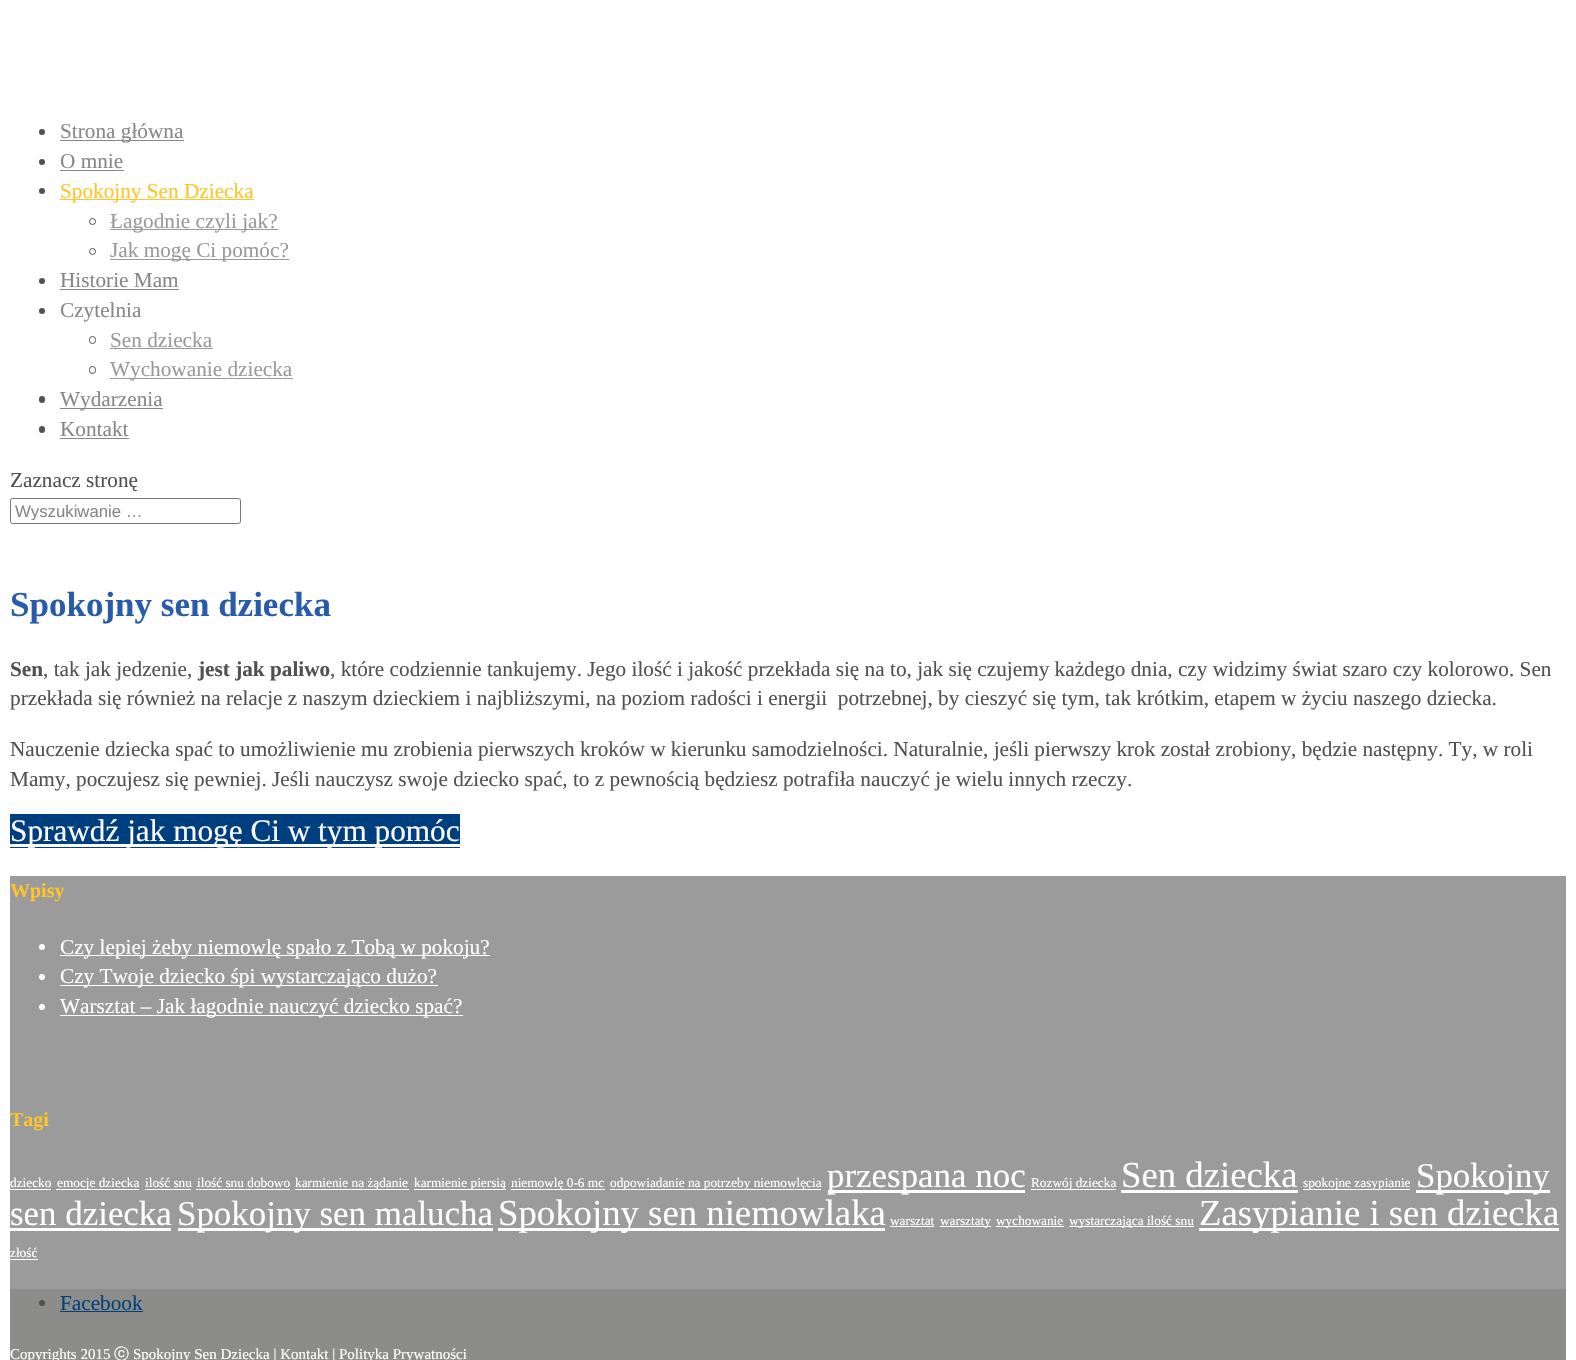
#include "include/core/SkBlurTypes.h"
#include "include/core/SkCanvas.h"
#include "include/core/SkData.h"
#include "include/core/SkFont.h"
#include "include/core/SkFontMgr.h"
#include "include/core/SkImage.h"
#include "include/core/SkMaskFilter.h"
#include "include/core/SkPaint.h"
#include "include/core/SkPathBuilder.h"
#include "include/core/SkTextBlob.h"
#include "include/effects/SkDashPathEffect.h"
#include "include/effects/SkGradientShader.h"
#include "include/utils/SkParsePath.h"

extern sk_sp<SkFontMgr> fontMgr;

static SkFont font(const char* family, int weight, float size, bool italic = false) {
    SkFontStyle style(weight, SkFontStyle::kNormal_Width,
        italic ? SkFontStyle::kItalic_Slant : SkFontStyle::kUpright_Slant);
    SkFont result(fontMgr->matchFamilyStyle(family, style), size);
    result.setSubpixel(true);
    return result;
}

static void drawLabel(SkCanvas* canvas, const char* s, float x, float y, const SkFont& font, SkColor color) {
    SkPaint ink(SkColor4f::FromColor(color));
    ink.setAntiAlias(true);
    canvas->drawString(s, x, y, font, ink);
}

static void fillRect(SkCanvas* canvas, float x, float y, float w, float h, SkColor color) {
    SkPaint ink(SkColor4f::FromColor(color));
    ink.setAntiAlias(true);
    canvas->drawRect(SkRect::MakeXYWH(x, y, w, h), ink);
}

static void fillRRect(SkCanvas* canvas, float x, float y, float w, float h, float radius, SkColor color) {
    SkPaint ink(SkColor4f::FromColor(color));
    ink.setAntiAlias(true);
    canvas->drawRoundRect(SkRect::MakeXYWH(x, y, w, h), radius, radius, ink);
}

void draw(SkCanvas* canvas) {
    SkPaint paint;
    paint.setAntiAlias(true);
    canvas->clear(0xFFFFFFFF);
    paint.setColor(0xFF515151);
    canvas->drawCircle(42, 132, 3, paint);
    fillRect(canvas, 60, 140, 124, 1, 0xFF878787);
    SkFont font1 = font("Liberation Serif", 400, 21.25f);
    drawLabel(canvas, "Strona główna", 60, 138, font1, 0xFF878787);
    canvas->drawCircle(42, 162, 3, paint);
    drawLabel(canvas, "O mnie", 60, 168, font1, 0xFF878787);
    fillRect(canvas, 60, 170, 64, 1, 0xFF878787);
    canvas->drawCircle(42, 191, 3, paint);
    fillRect(canvas, 60, 199, 194, 1, 0xFFFDC529);
    drawLabel(canvas, "Spokojny Sen Dziecka", 60, 198, font1, 0xFFFDC529);
    paint.setStroke(true);
    paint.setStrokeWidth(1);
    canvas->drawCircle(92.5f, 221.5f, 3, paint);
    fillRect(canvas, 110, 229, 168, 1, 0xFF999999);
    drawLabel(canvas, "Łagodnie czyli jak?", 110, 228, font1, 0xFF999999);
    canvas->drawCircle(92.5f, 251.5f, 3, paint);
    fillRect(canvas, 110, 259, 179, 1, 0xFF999999);
    drawLabel(canvas, "Jak mogę Ci pomóc?", 110, 257, font1, 0xFF999999);
    paint.setStroke(false);
    canvas->drawCircle(42, 281, 3, paint);
    drawLabel(canvas, "Historie Mam", 60, 287, font1, 0xFF878787);
    fillRect(canvas, 60, 289, 119, 1, 0xFF878787);
    canvas->drawCircle(42, 311, 3, paint);
    drawLabel(canvas, "Czytelnia", 60, 317, font1, 0xFF878787);
    paint.setStroke(true);
    canvas->drawRoundRect(SkRect::MakeXYWH(89.5f, 336.5f, 6, 7), 3, 3, paint);
    drawLabel(canvas, "Sen dziecka", 110, 347, font1, 0xFF999999);
    fillRect(canvas, 110, 348, 103, 1, 0xFF999999);
    canvas->drawRoundRect(SkRect::MakeXYWH(89.5f, 366.5f, 6, 7), 3, 3, paint);
    fillRect(canvas, 110, 378, 183, 1, 0xFF999999);
    drawLabel(canvas, "Wychowanie dziecka", 110, 376, font1, 0xFF999999);
    fillRRect(canvas, 39, 396, 6, 7, 3, 0xFF515151);
    fillRect(canvas, 60, 408, 103, 1, 0xFF878787);
    drawLabel(canvas, "Wydarzenia", 60, 406, font1, 0xFF878787);
    fillRRect(canvas, 39, 426, 6, 7, 3, 0xFF515151);
    drawLabel(canvas, "Kontakt", 60, 436, font1, 0xFF878787);
    fillRect(canvas, 60, 438, 69, 1, 0xFF878787);
    drawLabel(canvas, "Zaznacz stronę", 10, 487, font1, 0xFF515151);
    paint.setColor(0xFF767676);
    canvas->drawRoundRect(SkRect::MakeXYWH(10.5f, 498.5f, 230, 25), 2, 2, paint);
    canvas->save();
    canvas->clipRect(SkRect::MakeXYWH(15, 501, 205, 19));
    SkFont font2 = font("Liberation Sans", 400, 16.75f);
    drawLabel(canvas, "Wyszukiwanie …", 15, 517, font2, 0xFF878787);
    canvas->restore();
    SkFont font3 = font("Liberation Serif", 700, 35);
    drawLabel(canvas, "Spokojny sen dziecka", 10, 616, font3, 0xFF285BAA);
    SkFont font4 = font("Liberation Serif", 700, 21.25f);
    drawLabel(canvas, "Sen", 10, 676, font4, 0xFF515151);
    drawLabel(canvas, ", tak jak jedzenie,", 43, 676, font1, 0xFF515151);
    drawLabel(canvas, "jest jak paliwo", 198, 676, font4, 0xFF515151);
    drawLabel(canvas, ", które codziennie tankujemy. Jego ilość i jakość przekłada się na to, jak się czujemy każdego dnia, czy widzimy świat szaro czy kolorowo. Sen", 330, 676, font1, 0xFF515151);
    drawLabel(canvas, "przekłada się również na relacje z naszym dzieckiem i najbliższymi, na poziom radości i energii  potrzebnej, by cieszyć się tym, tak krótkim, etapem w życiu naszego dziecka.", 10, 705, font1, 0xFF515151);
    drawLabel(canvas, "Nauczenie dziecka spać to umożliwienie mu zrobienia pierwszych kroków w kierunku samodzielności. Naturalnie, jeśli pierwszy krok został zrobiony, będzie następny. Ty, w roli", 10, 756, font1, 0xFF515151);
    drawLabel(canvas, "Mamy, poczujesz się pewniej. Jeśli nauczysz swoje dziecko spać, to z pewnością będziesz potrafiła nauczyć je wielu innych rzeczy.", 10, 786, font1, 0xFF515151);
    fillRect(canvas, 10, 814, 450, 34, 0xFF003F7F);
    fillRect(canvas, 10, 844, 450, 3, 0xFFFFFFFF);
    SkFont font5 = font("Liberation Serif", 400, 31.25f);
    drawLabel(canvas, "Sprawdź jak mogę Ci w tym pomóc", 10, 841, font5, 0xFFFFFFFF);
    fillRect(canvas, 10, 876, 1556, 413, 0xFF9B9B9B);
    SkFont font6 = font("Liberation Serif", 700, 20);
    drawLabel(canvas, "Wpisy", 10, 897, font6, 0xFFFDC529);
    paint.setStroke(false);
    paint.setColor(0xFFFFFFFF);
    canvas->drawCircle(42, 947, 3, paint);
    fillRect(canvas, 60, 955, 430, 1, 0xFFFFFFFF);
    drawLabel(canvas, "Czy lepiej żeby niemowlę spało z Tobą w pokoju?", 60, 954, font1, 0xFFFFFFFF);
    canvas->drawCircle(42, 977, 3, paint);
    fillRect(canvas, 60, 985, 378, 1, 0xFFFFFFFF);
    drawLabel(canvas, "Czy Twoje dziecko śpi wystarczająco dużo?", 60, 983, font1, 0xFFFFFFFF);
    canvas->drawCircle(42, 1007, 3, paint);
    fillRect(canvas, 60, 1015, 403, 1, 0xFFFFFFFF);
    drawLabel(canvas, "Warsztat – Jak łagodnie nauczyć dziecko spać?", 60, 1013, font1, 0xFFFFFFFF);
    drawLabel(canvas, "Tagi", 10, 1126, font6, 0xFFFDC529);
    SkFont font7 = font("Liberation Serif", 400, 13.3f);
    drawLabel(canvas, "dziecko", 10, 1187, font7, 0xFFFFFFFF);
    fillRect(canvas, 10, 1189, 41, 1, 0xFFFFFFFF);
    fillRect(canvas, 56, 1189, 83, 1, 0xFFFFFFFF);
    drawLabel(canvas, "emocje dziecka", 57, 1187, font7, 0xFFFFFFFF);
    drawLabel(canvas, "ilość snu", 145, 1187, font7, 0xFFFFFFFF);
    fillRect(canvas, 145, 1189, 46, 1, 0xFFFFFFFF);
    drawLabel(canvas, "ilość snu dobowo", 197, 1187, font7, 0xFFFFFFFF);
    fillRect(canvas, 196, 1189, 94, 1, 0xFFFFFFFF);
    fillRect(canvas, 295, 1189, 114, 1, 0xFFFFFFFF);
    drawLabel(canvas, "karmienie na żądanie", 295, 1187, font7, 0xFFFFFFFF);
    fillRect(canvas, 414, 1189, 92, 1, 0xFFFFFFFF);
    drawLabel(canvas, "karmienie piersią", 414, 1187, font7, 0xFFFFFFFF);
    fillRect(canvas, 511, 1189, 94, 1, 0xFFFFFFFF);
    drawLabel(canvas, "niemowlę 0-6 mc", 511, 1187, font7, 0xFFFFFFFF);
    fillRect(canvas, 610, 1189, 211, 1, 0xFFFFFFFF);
    drawLabel(canvas, "odpowiadanie na potrzeby niemowlęcia", 610, 1187, font7, 0xFFFFFFFF);
    fillRect(canvas, 828, 1190, 197, 3, 0xFFFFFFFF);
    SkFont font8 = font("Liberation Serif", 400, 34.9f);
    drawLabel(canvas, "przespana noc", 827, 1187, font8, 0xFFFFFFFF);
    fillRect(canvas, 1031, 1189, 85, 1, 0xFFFFFFFF);
    drawLabel(canvas, "Rozwój dziecka", 1031, 1187, font7, 0xFFFFFFFF);
    SkFont font9 = font("Liberation Serif", 400, 36.75f);
    drawLabel(canvas, "Sen dziecka", 1121, 1187, font9, 0xFFFFFFFF);
    fillRect(canvas, 1121, 1190, 177, 3, 0xFFFFFFFF);
    fillRect(canvas, 1303, 1189, 107, 1, 0xFFFFFFFF);
    drawLabel(canvas, "spokojne zasypianie", 1303, 1187, font7, 0xFFFFFFFF);
    fillRect(canvas, 1416, 1190, 134, 3, 0xFFFFFFFF);
    drawLabel(canvas, "Spokojny", 1416, 1187, font8, 0xFFFFFFFF);
    drawLabel(canvas, "sen dziecka", 10, 1225, font8, 0xFFFFFFFF);
    fillRect(canvas, 10, 1228, 161, 3, 0xFFFFFFFF);
    fillRect(canvas, 178, 1228, 315, 3, 0xFFFFFFFF);
    drawLabel(canvas, "Spokojny sen malucha", 177, 1225, font8, 0xFFFFFFFF);
    fillRect(canvas, 498, 1228, 387, 3, 0xFFFFFFFF);
    drawLabel(canvas, "Spokojny sen niemowlaka", 498, 1225, font9, 0xFFFFFFFF);
    drawLabel(canvas, "warsztat", 890, 1225, font7, 0xFFFFFFFF);
    fillRect(canvas, 890, 1226, 44, 1, 0xFFFFFFFF);
    fillRect(canvas, 940, 1226, 51, 1, 0xFFFFFFFF);
    drawLabel(canvas, "warsztaty", 940, 1225, font7, 0xFFFFFFFF);
    fillRect(canvas, 996, 1226, 68, 1, 0xFFFFFFFF);
    drawLabel(canvas, "wychowanie", 996, 1225, font7, 0xFFFFFFFF);
    fillRect(canvas, 1069, 1226, 125, 1, 0xFFFFFFFF);
    drawLabel(canvas, "wystarczająca ilość snu", 1069, 1225, font7, 0xFFFFFFFF);
    fillRect(canvas, 1199, 1228, 360, 3, 0xFFFFFFFF);
    drawLabel(canvas, "Zasypianie i sen dziecka", 1199, 1225, font9, 0xFFFFFFFF);
    drawLabel(canvas, "złość", 10, 1257, font7, 0xFFFFFFFF);
    fillRect(canvas, 10, 1259, 28, 1, 0xFFFFFFFF);
    fillRect(canvas, 10, 1289, 1556, 71, 0xFF8C8C8A);
    paint.setColor(0xFF515151);
    canvas->drawCircle(42, 1303, 3, paint);
    drawLabel(canvas, "Facebook", 60, 1310, font1, 0xFF014079);
    fillRect(canvas, 60, 1311, 83, 1, 0xFF014079);
    SkFont font10 = font("Liberation Serif", 400, 15);
    drawLabel(canvas, "Copyrights 2015", 10, 1359, font10, 0xFFFFFFFF);
    SkFont font11 = font("WenQuanYi Zen Hei", 500, 15);
    drawLabel(canvas, "ⓒ", 114, 1359, font11, 0xFFFFFFFF);
    drawLabel(canvas, "Spokojny Sen Dziecka | Kontakt | Polityka Prywatności", 133, 1359, font10, 0xFFFFFFFF);
}
